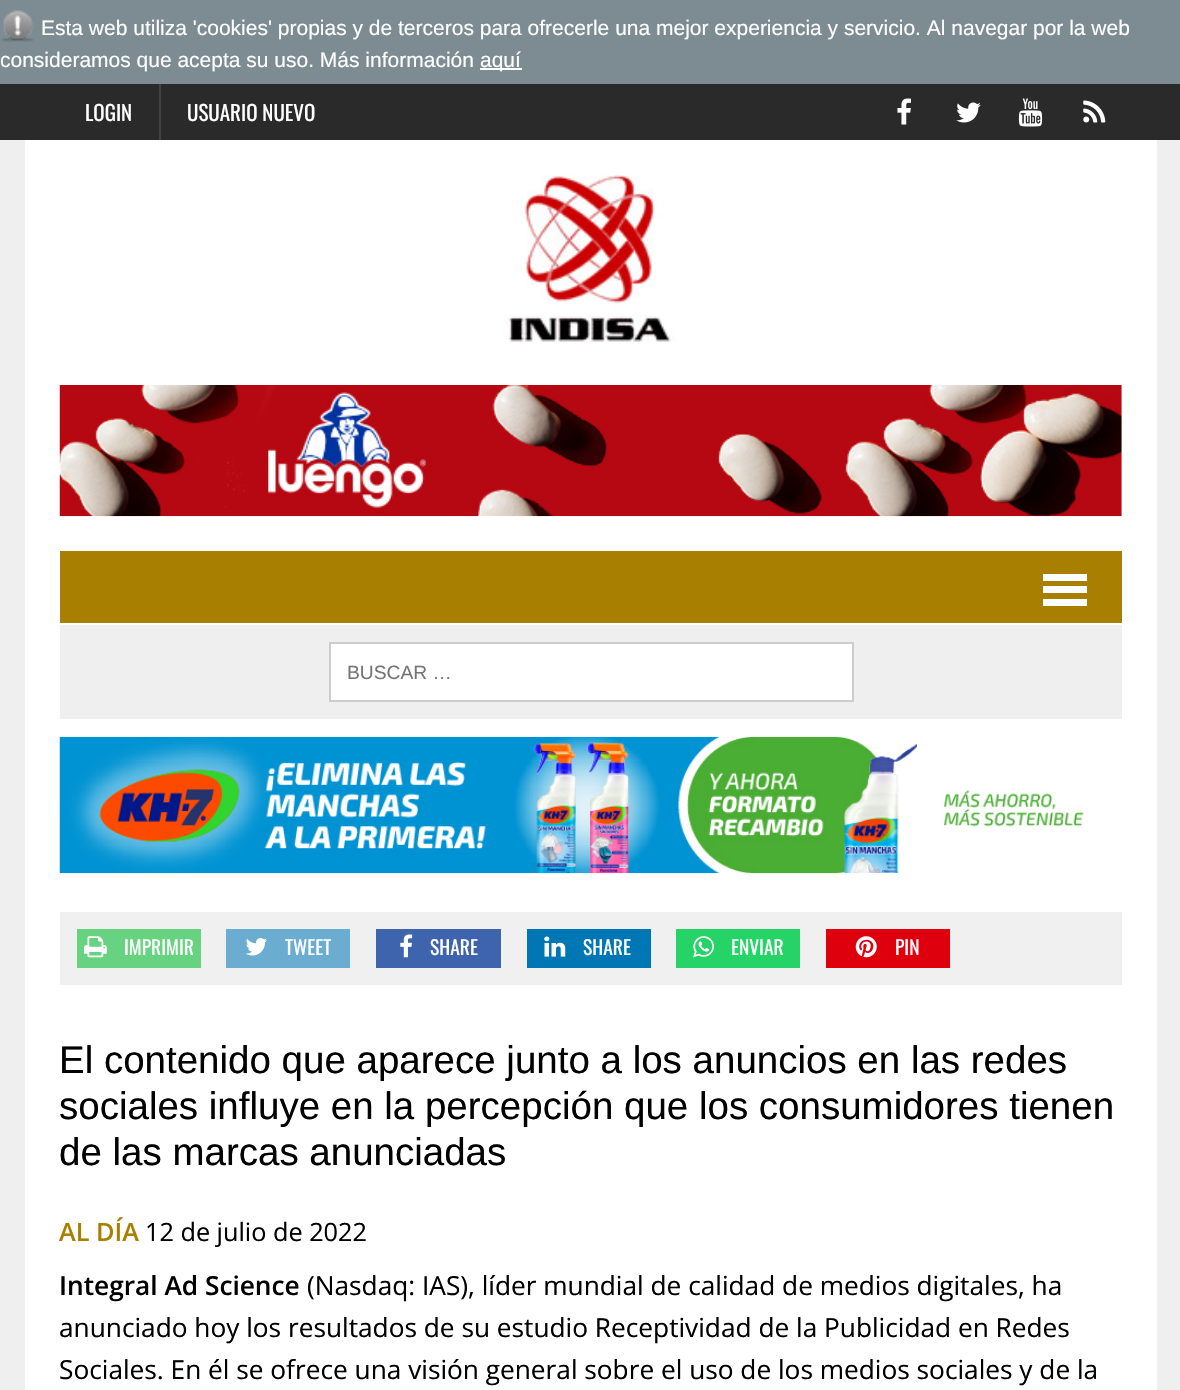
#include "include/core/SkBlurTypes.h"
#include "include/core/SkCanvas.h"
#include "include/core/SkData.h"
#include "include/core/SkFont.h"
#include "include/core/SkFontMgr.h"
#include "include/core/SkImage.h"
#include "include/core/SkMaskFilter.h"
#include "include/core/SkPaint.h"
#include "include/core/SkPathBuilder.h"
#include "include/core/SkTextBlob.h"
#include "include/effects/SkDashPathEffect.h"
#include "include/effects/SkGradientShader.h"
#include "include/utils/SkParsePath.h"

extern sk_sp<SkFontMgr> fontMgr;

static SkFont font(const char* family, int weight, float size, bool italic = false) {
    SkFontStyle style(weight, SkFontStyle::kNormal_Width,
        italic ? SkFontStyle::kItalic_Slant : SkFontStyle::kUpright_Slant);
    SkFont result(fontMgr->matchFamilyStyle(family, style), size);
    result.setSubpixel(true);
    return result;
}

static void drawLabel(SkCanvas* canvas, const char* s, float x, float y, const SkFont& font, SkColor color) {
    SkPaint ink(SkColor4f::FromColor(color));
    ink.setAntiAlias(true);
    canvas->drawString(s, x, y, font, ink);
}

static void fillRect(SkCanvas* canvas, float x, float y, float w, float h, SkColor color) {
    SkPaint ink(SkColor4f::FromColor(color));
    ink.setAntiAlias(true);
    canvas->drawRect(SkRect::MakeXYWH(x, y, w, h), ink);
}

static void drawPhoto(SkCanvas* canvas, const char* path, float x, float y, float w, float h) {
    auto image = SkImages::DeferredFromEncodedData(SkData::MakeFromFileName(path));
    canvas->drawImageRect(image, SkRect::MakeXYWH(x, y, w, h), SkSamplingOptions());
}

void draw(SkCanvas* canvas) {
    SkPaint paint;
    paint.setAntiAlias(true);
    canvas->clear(0xFFEFEFEF);
    fillRect(canvas, 0, 0, 1180, 84, 0xFF7D8C93);
    drawPhoto(canvas, "assets/img1.png", 1, 10, 33, 32);
    SkFont font1 = font("Liberation Sans", 400, 21);
    drawLabel(canvas, "Esta web utiliza 'cookies' propias y de terceros para ofrecerle una mejor experiencia y servicio. Al navegar por la web", 41, 35, font1, 0xFFFFFFFF);
    drawLabel(canvas, "consideramos que acepta su uso. Más información", 0, 67, font1, 0xFFFFFFFF);
    fillRect(canvas, 480, 68, 42, 2, 0xFFFFFFFF);
    drawLabel(canvas, "aquí", 480, 67, font1, 0xFFFFFFFF);
    fillRect(canvas, 0, 84, 1180, 56, 0xFF2A2A2A);
    SkFont font2 = font("Oswald", 400, 21);
    drawLabel(canvas, "LOGIN", 85, 121, font2, 0xFFFFFFFF);
    fillRect(canvas, 159, 84, 2, 56, 0xFF424242);
    drawLabel(canvas, "USUARIO NUEVO", 187, 121, font2, 0xFFFFFFFF);
    drawPhoto(canvas, "assets/img2.png", 897, 98, 14, 27);
    drawPhoto(canvas, "assets/img3.png", 956, 102, 25, 21);
    drawPhoto(canvas, "assets/img4.png", 1018, 98, 25, 29);
    drawPhoto(canvas, "assets/img5.png", 1083, 100, 23, 23);
    fillRect(canvas, 25, 140, 1132, 1250, 0xFFFFFFFF);
    drawPhoto(canvas, "assets/img6.png", 503, 175, 173, 168);
    drawPhoto(canvas, "assets/img7.png", 59, 385, 1063, 132);
    fillRect(canvas, 60, 551, 1062, 72, 0xFFA87F01);
    fillRect(canvas, 1043, 574, 44, 7, 0xFFFFFFFF);
    fillRect(canvas, 1043, 586, 44, 7, 0xFFFFFFFF);
    fillRect(canvas, 1043, 599, 44, 7, 0xFFFFFFFF);
    fillRect(canvas, 60, 625, 1062, 94, 0xFFEFEFEF);
    paint.setColor(0xFFFFFFFF);
    canvas->drawRect(SkRect::MakeXYWH(330, 643, 523, 58), paint);
    paint.setStroke(true);
    paint.setStrokeWidth(2);
    paint.setColor(0xFFCDCDCD);
    canvas->drawRect(SkRect::MakeXYWH(330, 643, 523, 58), paint);
    SkFont font3 = font("Liberation Sans", 400, 19.25f);
    drawLabel(canvas, "BUSCAR …", 347, 679, font3, 0xFF757575);
    drawPhoto(canvas, "assets/img8.png", 59, 736, 1025, 138);
    fillRect(canvas, 60, 912, 1062, 73, 0xFFF0F0F0);
    fillRect(canvas, 77, 929, 124, 39, 0xFF67D380);
    drawPhoto(canvas, "assets/img9.png", 84, 936, 23, 22);
    SkFont font4 = font("Oswald", 400, 19.5f);
    drawLabel(canvas, "IMPRIMIR", 124, 955, font4, 0xFFFFFFFF);
    fillRect(canvas, 226, 929, 124, 39, 0xFF6AADD1);
    drawPhoto(canvas, "assets/img10.png", 245, 938, 22, 18);
    drawLabel(canvas, "TWEET", 285, 955, font4, 0xFFFFFFFF);
    fillRect(canvas, 376, 929, 125, 39, 0xFF3E64AD);
    drawPhoto(canvas, "assets/img11.png", 400, 934, 13, 24);
    drawLabel(canvas, "SHARE", 430, 955, font4, 0xFFFFFFFF);
    fillRect(canvas, 527, 929, 124, 39, 0xFF0077B5);
    drawPhoto(canvas, "assets/img12.png", 544, 936, 22, 21);
    drawLabel(canvas, "SHARE", 583, 955, font4, 0xFFFFFFFF);
    fillRect(canvas, 676, 929, 124, 39, 0xFF25D366);
    drawPhoto(canvas, "assets/img13.png", 693, 936, 21, 22);
    drawLabel(canvas, "ENVIAR", 731, 955, font4, 0xFFFFFFFF);
    fillRect(canvas, 826, 929, 124, 39, 0xFFDE010D);
    drawPhoto(canvas, "assets/img14.png", 855, 936, 22, 22);
    drawLabel(canvas, "PIN", 895, 955, font4, 0xFFFFFFFF);
    SkFont font5 = font("Liberation Sans", 400, 38.5f);
    drawLabel(canvas, "El contenido que aparece junto a los anuncios en las redes", 59, 1073, font5, 0xFF000000);
    drawLabel(canvas, "sociales influye en la percepción que los consumidores tienen", 59, 1119, font5, 0xFF000000);
    drawLabel(canvas, "de las marcas anunciadas", 59, 1165, font5, 0xFF000000);
    SkFont font6 = font("Open Sans", 600, 25.25f);
    drawLabel(canvas, "AL DÍA", 59, 1241, font6, 0xFFA87F01);
    SkFont font7 = font("Open Sans", 400, 25.25f);
    drawLabel(canvas, "12 de julio de 2022", 145, 1241, font7, 0xFF000000);
    SkFont font8 = font("Open Sans", 600, 26.25f);
    drawLabel(canvas, "Integral Ad Science", 59, 1295, font8, 0xFF000000);
    SkFont font9 = font("Open Sans", 400, 26.25f);
    drawLabel(canvas, "(Nasdaq: IAS), líder mundial de calidad de medios digitales, ha", 307, 1295, font9, 0xFF000000);
    drawLabel(canvas, "anunciado hoy los resultados de su estudio Receptividad de la Publicidad en Redes", 59, 1337, font9, 0xFF000000);
    drawLabel(canvas, "Sociales. En él se ofrece una visión general sobre el uso de los medios sociales y de la", 59, 1379, font9, 0xFF000000);
}
